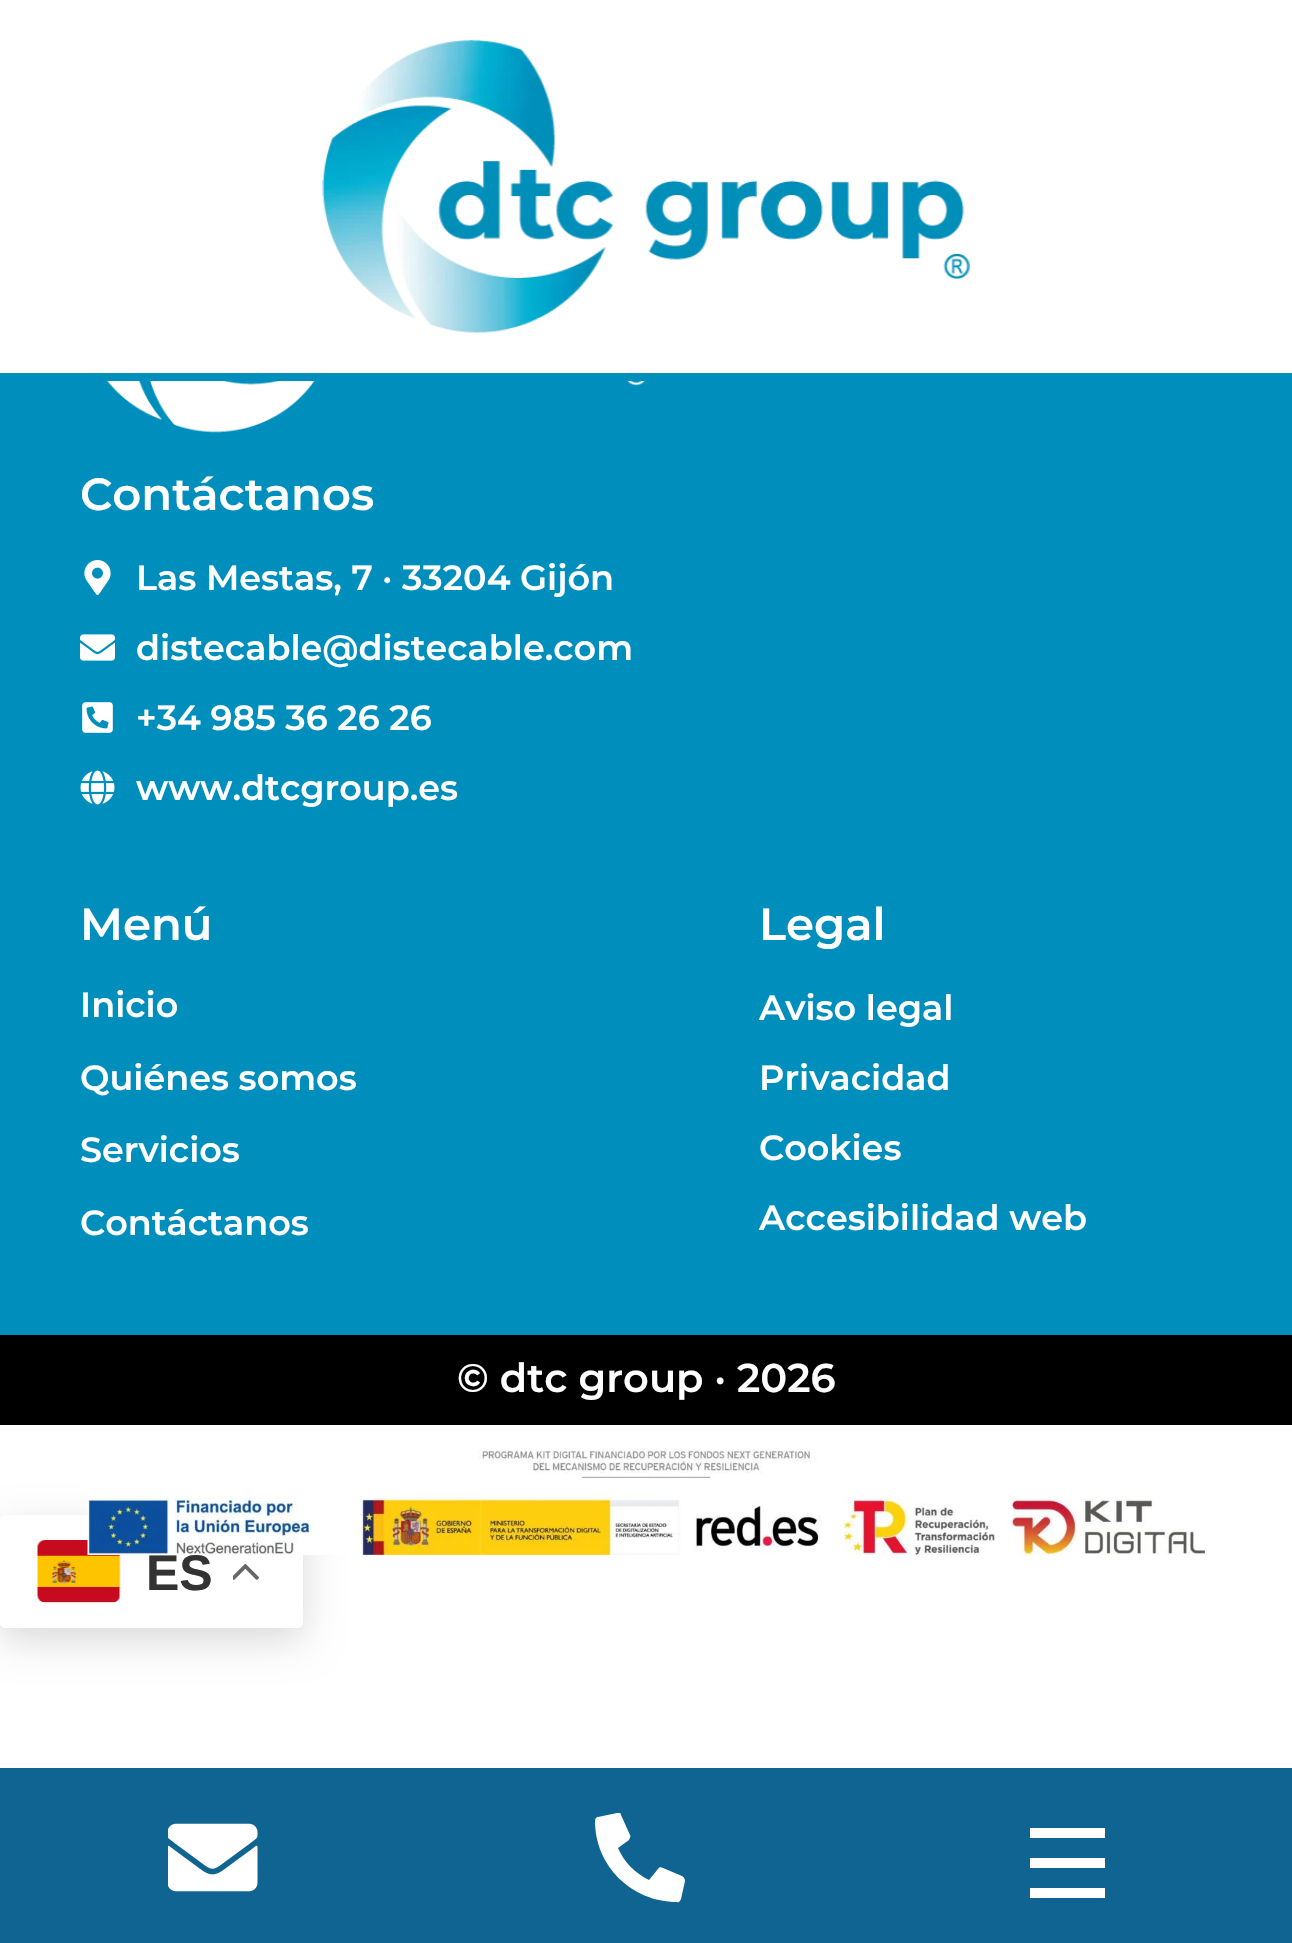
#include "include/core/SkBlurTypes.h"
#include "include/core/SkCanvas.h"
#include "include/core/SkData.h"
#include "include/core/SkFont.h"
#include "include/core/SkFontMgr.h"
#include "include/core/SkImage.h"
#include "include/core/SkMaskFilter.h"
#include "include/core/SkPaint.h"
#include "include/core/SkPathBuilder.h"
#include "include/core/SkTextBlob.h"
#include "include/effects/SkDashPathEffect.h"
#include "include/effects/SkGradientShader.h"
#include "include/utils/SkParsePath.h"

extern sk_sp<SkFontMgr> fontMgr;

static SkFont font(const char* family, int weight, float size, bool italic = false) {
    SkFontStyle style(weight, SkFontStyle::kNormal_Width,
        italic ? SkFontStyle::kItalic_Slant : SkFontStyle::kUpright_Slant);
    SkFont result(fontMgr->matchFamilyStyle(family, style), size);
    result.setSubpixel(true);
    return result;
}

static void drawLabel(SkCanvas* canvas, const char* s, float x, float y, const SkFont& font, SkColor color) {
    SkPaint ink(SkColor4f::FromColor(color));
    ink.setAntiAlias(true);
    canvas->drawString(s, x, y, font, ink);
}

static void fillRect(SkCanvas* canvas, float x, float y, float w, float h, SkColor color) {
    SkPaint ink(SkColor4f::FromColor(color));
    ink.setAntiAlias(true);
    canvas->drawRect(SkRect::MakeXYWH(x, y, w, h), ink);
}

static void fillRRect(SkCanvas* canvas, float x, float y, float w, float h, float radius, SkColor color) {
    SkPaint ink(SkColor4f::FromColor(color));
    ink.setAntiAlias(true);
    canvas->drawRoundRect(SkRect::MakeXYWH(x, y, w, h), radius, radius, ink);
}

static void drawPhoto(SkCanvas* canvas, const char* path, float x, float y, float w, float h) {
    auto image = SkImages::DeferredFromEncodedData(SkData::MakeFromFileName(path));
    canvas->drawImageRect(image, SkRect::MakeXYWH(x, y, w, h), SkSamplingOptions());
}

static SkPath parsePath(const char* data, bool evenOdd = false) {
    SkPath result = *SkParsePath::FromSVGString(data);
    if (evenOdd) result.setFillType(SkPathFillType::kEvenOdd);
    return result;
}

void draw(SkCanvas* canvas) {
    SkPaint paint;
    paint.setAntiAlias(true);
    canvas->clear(0xFFFFFFFF);
    drawPhoto(canvas, "assets/img1.png", 322, 40, 648, 293);
    fillRect(canvas, 0, 373, 1292, 962, 0xFF008FBC);
    drawPhoto(canvas, "assets/img2.png", 106, 381, 539, 52);
    SkFont font1 = font("Montserrat", 600, 45);
    drawLabel(canvas, "Contáctanos", 80, 510, font1, 0xFFFFFFFF);
    drawPhoto(canvas, "assets/img3.png", 84, 560, 27, 35);
    SkFont font2 = font("Montserrat", 600, 35);
    drawLabel(canvas, "Las Mestas, 7 · 33204 Gijón", 136, 590, font2, 0xFFFFFFFF);
    drawPhoto(canvas, "assets/img4.png", 80, 634, 35, 27);
    drawLabel(canvas, "distecable@distecable.com", 136, 660, font2, 0xFFFFFFFF);
    drawPhoto(canvas, "assets/img5.png", 82, 702, 31, 31);
    drawLabel(canvas, "+34 985 36 26 26", 136, 730, font2, 0xFFFFFFFF);
    drawPhoto(canvas, "assets/img6.png", 80, 770, 35, 35);
    drawLabel(canvas, "www.dtcgroup.es", 136, 800, font2, 0xFFFFFFFF);
    drawLabel(canvas, "Menú", 80, 940, font1, 0xFFFFFFFF);
    drawLabel(canvas, "Inicio", 80, 1017, font2, 0xFFFFFFFF);
    drawLabel(canvas, "Quiénes somos", 80, 1090, font2, 0xFFFFFFFF);
    drawLabel(canvas, "Servicios", 80, 1162, font2, 0xFFFFFFFF);
    drawLabel(canvas, "Contáctanos", 80, 1235, font2, 0xFFFFFFFF);
    drawLabel(canvas, "Legal", 759, 940, font1, 0xFFFFFFFF);
    drawLabel(canvas, "Aviso legal", 759, 1020, font2, 0xFFFFFFFF);
    drawLabel(canvas, "Privacidad", 759, 1090, font2, 0xFFFFFFFF);
    drawLabel(canvas, "Cookies", 759, 1160, font2, 0xFFFFFFFF);
    drawLabel(canvas, "Accesibilidad web", 759, 1230, font2, 0xFFFFFFFF);
    fillRect(canvas, 0, 1335, 1292, 90, 0xFF000000);
    SkFont font3 = font("Montserrat", 600, 40);
    drawLabel(canvas, "© dtc group · 2026", 457, 1392, font3, 0xFFFFFFFF);
    paint.setColor(0x26000000);
    paint.setMaskFilter(SkMaskFilter::MakeBlur(kNormal_SkBlurStyle, 19));
    canvas->drawRoundRect(SkRect::MakeXYWH(0, 1528, 303, 112), 5, 5, paint);
    paint.setMaskFilter(nullptr);
    fillRRect(canvas, 0, 1515, 303, 113, 5, 0xFFFFFFFF);
    drawPhoto(canvas, "assets/img7.png", 37, 1540, 84, 63);
    SkFont font4 = font("Liberation Sans", 700, 50);
    drawLabel(canvas, "ES", 146, 1590, font4, 0xFF333333);
    drawPhoto(canvas, "assets/img8.png", 233, 1563, 26, 17);
    drawPhoto(canvas, "assets/img9.png", 87, 1450, 1118, 105);
    fillRect(canvas, 0, 1768, 1292, 175, 0xFF106491);
    drawPhoto(canvas, "assets/img10.png", 168, 1823, 90, 69);
    canvas->save();
    canvas->clipRect(SkRect::MakeXYWH(595, 1813, 90, 90));
    paint.setColor(0xFFFFFFFF);
    canvas->drawPath(parsePath("M682 1876L663 1868C661 1867 659 1867 658 1869L649 1880C635 1873 624 1862 618 1848L629 1840C630 1838 631 1836 630 1835L621 1815C621 1813 619 1812 617 1813L598 1817C596 1817 595 1819 595 1821C595 1866 632 1902 677 1902C679 1903 680 1901 681 1899L685 1881C685 1879 684 1877 682 1876Z"), paint);
    canvas->restore();
    fillRect(canvas, 1030, 1828, 75, 10, 0xFFFFFFFF);
    fillRect(canvas, 1030, 1858, 75, 10, 0xFFFFFFFF);
    fillRect(canvas, 1030, 1888, 75, 10, 0xFFFFFFFF);
}
